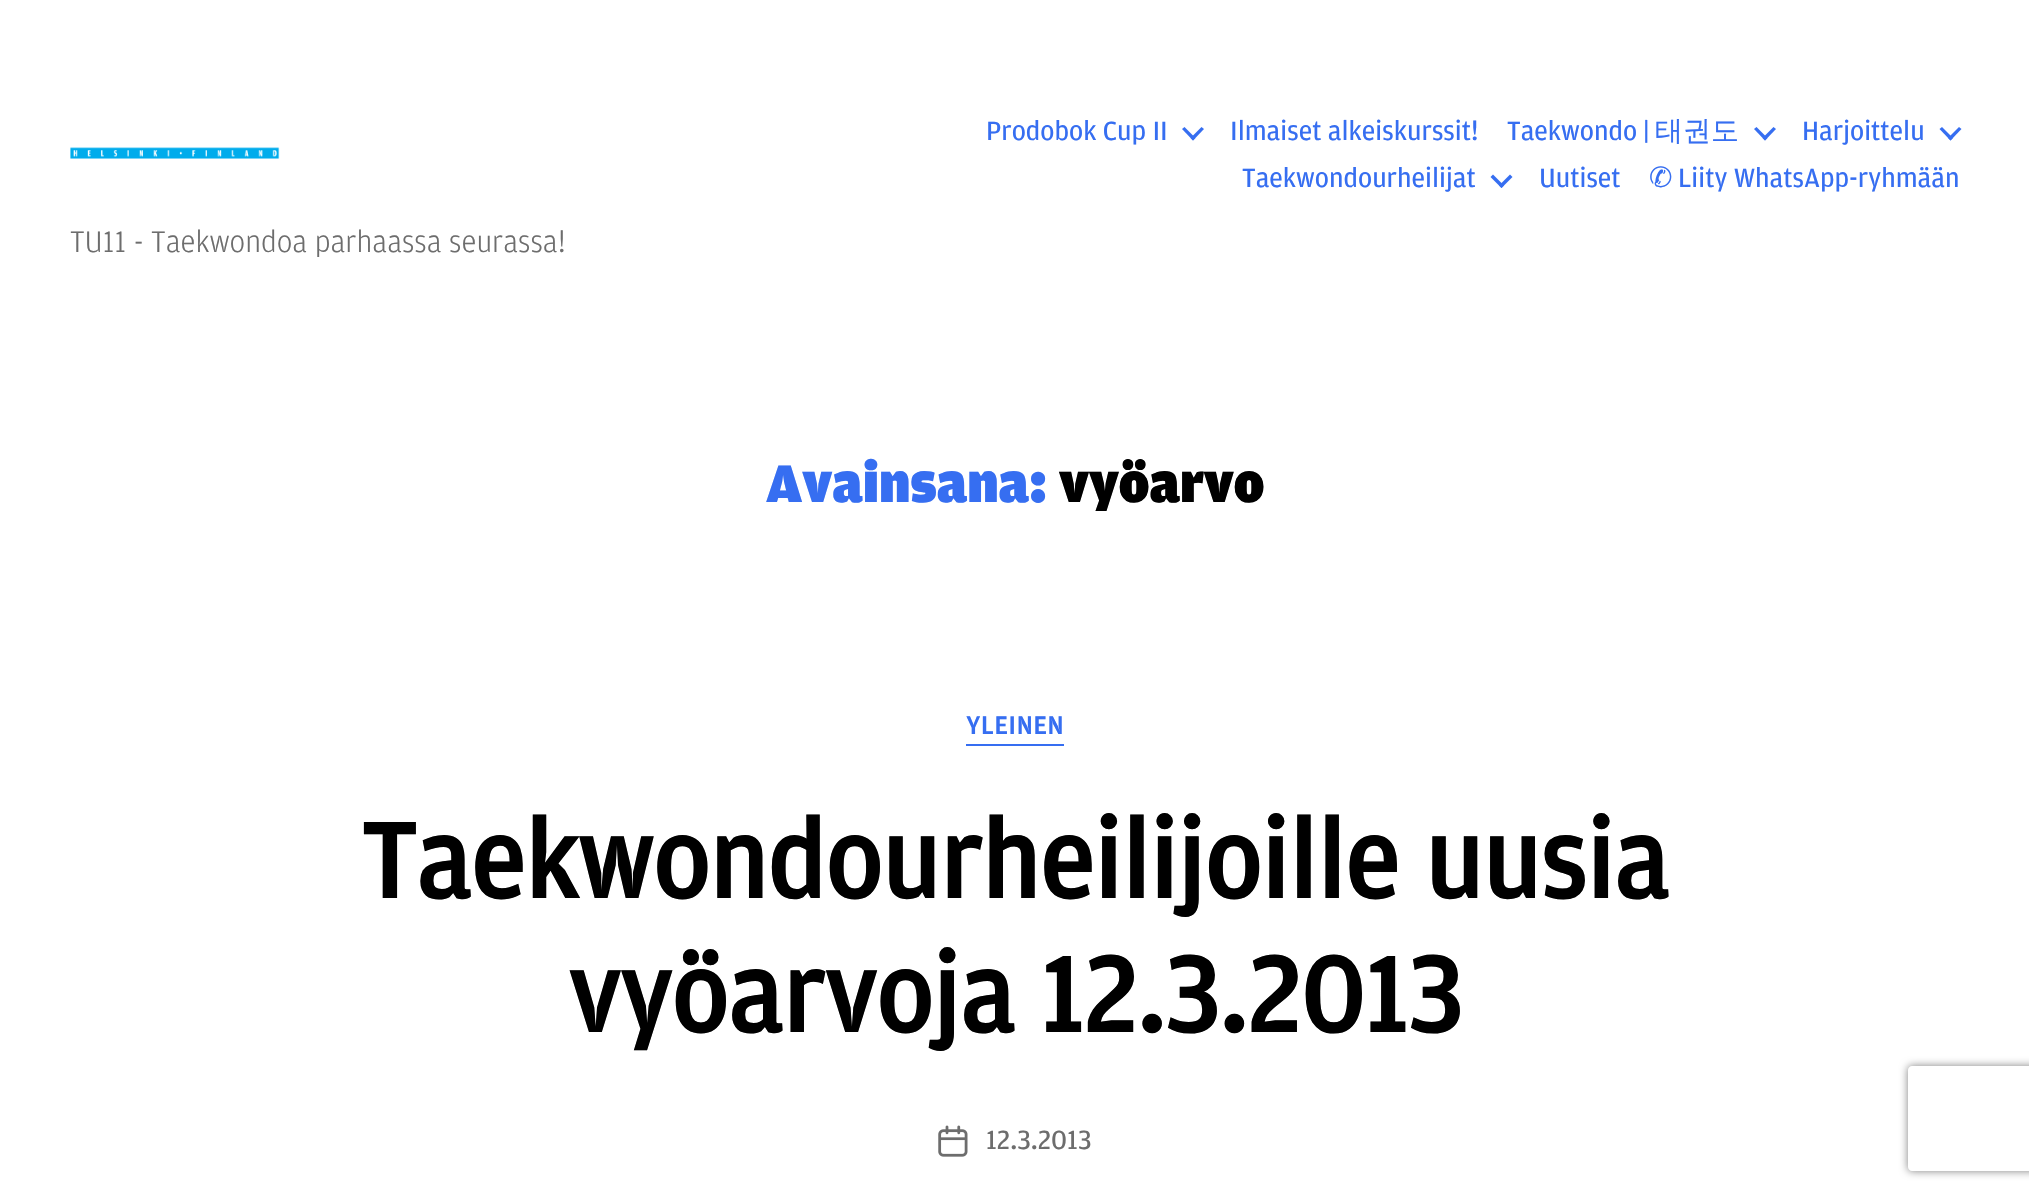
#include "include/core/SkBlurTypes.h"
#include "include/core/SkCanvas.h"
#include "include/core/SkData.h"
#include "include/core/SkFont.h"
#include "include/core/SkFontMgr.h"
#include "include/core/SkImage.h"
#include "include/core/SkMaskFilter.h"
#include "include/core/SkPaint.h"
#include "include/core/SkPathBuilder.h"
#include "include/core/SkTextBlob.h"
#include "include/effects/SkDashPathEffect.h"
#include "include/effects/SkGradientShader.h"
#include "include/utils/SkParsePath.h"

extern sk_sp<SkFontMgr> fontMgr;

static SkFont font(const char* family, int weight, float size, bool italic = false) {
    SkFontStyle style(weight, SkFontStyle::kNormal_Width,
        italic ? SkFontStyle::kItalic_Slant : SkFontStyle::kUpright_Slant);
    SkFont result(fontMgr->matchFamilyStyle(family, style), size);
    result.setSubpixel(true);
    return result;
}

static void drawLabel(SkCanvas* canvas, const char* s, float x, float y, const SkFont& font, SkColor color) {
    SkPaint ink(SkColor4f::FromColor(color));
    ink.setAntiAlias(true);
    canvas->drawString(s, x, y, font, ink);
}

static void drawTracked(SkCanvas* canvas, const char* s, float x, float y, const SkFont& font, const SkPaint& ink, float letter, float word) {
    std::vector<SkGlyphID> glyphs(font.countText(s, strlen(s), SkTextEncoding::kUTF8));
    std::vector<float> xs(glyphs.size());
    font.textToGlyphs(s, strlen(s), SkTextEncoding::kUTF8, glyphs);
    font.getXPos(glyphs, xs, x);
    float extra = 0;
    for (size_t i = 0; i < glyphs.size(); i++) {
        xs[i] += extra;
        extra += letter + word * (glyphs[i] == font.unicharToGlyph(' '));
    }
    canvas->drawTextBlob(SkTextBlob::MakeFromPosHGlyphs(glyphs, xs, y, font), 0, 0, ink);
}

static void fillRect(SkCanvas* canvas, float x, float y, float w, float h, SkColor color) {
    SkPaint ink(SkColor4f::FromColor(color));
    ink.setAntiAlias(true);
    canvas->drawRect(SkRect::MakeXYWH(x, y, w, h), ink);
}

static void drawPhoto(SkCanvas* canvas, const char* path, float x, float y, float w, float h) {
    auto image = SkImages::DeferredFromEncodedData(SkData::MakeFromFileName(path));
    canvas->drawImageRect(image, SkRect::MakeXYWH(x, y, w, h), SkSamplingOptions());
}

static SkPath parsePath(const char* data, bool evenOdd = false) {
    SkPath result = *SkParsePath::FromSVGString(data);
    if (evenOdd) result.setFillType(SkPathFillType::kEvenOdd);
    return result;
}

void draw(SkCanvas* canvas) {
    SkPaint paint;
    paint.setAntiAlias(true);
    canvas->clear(0xFFFFFFFF);
    SkFont font1 = font("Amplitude", 400, 28);
    drawLabel(canvas, "Prodobok Cup II", 986, 140, font1, 0xFF366EF1);
    paint.setColor(0xFF366EF1);
    canvas->drawPath(parsePath("M1182 129L1184.5 127L1195.5 138L1193 140.5Z"), paint);
    canvas->drawPath(parsePath("M1190.5 138L1201.5 127L1204 129L1193 140.5Z"), paint);
    drawLabel(canvas, "Ilmaiset alkeiskurssit!", 1230, 140, font1, 0xFF366EF1);
    drawLabel(canvas, "Taekwondo |", 1507, 140, font1, 0xFF366EF1);
    SkFont font2 = font("WenQuanYi Zen Hei", 500, 28);
    drawLabel(canvas, "태권도", 1655, 140, font2, 0xFF366EF1);
    canvas->drawPath(parsePath("M1754 129L1756.5 127L1767.5 138L1765 140.5Z"), paint);
    canvas->drawPath(parsePath("M1762.5 138L1773.5 127L1776 129L1765 140.5Z"), paint);
    drawLabel(canvas, "Harjoittelu", 1802, 140, font1, 0xFF366EF1);
    canvas->drawPath(parsePath("M1939.5 129L1942 127L1953 138L1950.5 140.5Z"), paint);
    canvas->drawPath(parsePath("M1948 138L1959 127L1961.5 129L1950.5 140.5Z"), paint);
    drawLabel(canvas, "Taekwondourheilijat", 1242, 187, font1, 0xFF366EF1);
    canvas->drawPath(parsePath("M1490.5 177L1493 174.5L1504 185.5L1501.5 188Z"), paint);
    canvas->drawPath(parsePath("M1499 185.5L1510 174.5L1512.5 177L1501.5 188Z"), paint);
    drawLabel(canvas, "Uutiset", 1539, 187, font1, 0xFF366EF1);
    SkFont font3 = font("DejaVu Sans", 400, 28);
    drawLabel(canvas, "✆", 1649, 187, font3, 0xFF366EF1);
    drawLabel(canvas, "Liity WhatsApp-ryhmään", 1678, 187, font1, 0xFF366EF1);
    drawPhoto(canvas, "assets/img1.png", 70, 147, 210, 12);
    SkFont font4 = font("Amplitude", 300, 31.5f);
    drawLabel(canvas, "TU11 - Taekwondoa parhaassa seurassa!", 70, 252, font4, 0xFF6D6D6D);
    SkFont font5 = font("Amplitude", 900, 56);
    drawLabel(canvas, "Avainsana:", 766, 502, font5, 0xFF366EF1);
    drawLabel(canvas, "vyöarvo", 1059, 502, font5, 0xFF000000);
    fillRect(canvas, 966, 744, 98, 2, 0xFF366EF1);
    SkFont font6 = font("Amplitude", 700, 26);
    drawTracked(canvas, "YLEINEN", 966, 734, font6, paint, 1, 0);
    SkFont font7 = font("Amplitude", 700, 112);
    drawLabel(canvas, "Taekwondourheilijoille uusia", 361, 898, font7, 0xFF000000);
    drawLabel(canvas, "vyöarvoja 12.3.2013", 568, 1032, font7, 0xFF000000);
    drawPhoto(canvas, "assets/img2.png", 938, 1125, 30, 32);
    drawLabel(canvas, "12.3.2013", 986, 1149, font1, 0xFF6D6D6D);
    canvas->save();
    canvas->clipPath(parsePath("M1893 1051H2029V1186H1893ZM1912 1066H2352C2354 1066 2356 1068 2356 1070V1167C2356 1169 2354 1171 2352 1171H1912C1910 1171 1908 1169 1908 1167V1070C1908 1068 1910 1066 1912 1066Z", true), true);
    paint.setColor(0xFF808080);
    paint.setMaskFilter(SkMaskFilter::MakeBlur(kNormal_SkBlurStyle, 4.5f));
    canvas->drawRoundRect(SkRect::MakeXYWH(1908, 1066, 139, 105), 4, 4, paint);
    paint.setMaskFilter(nullptr);
    canvas->restore();
}
